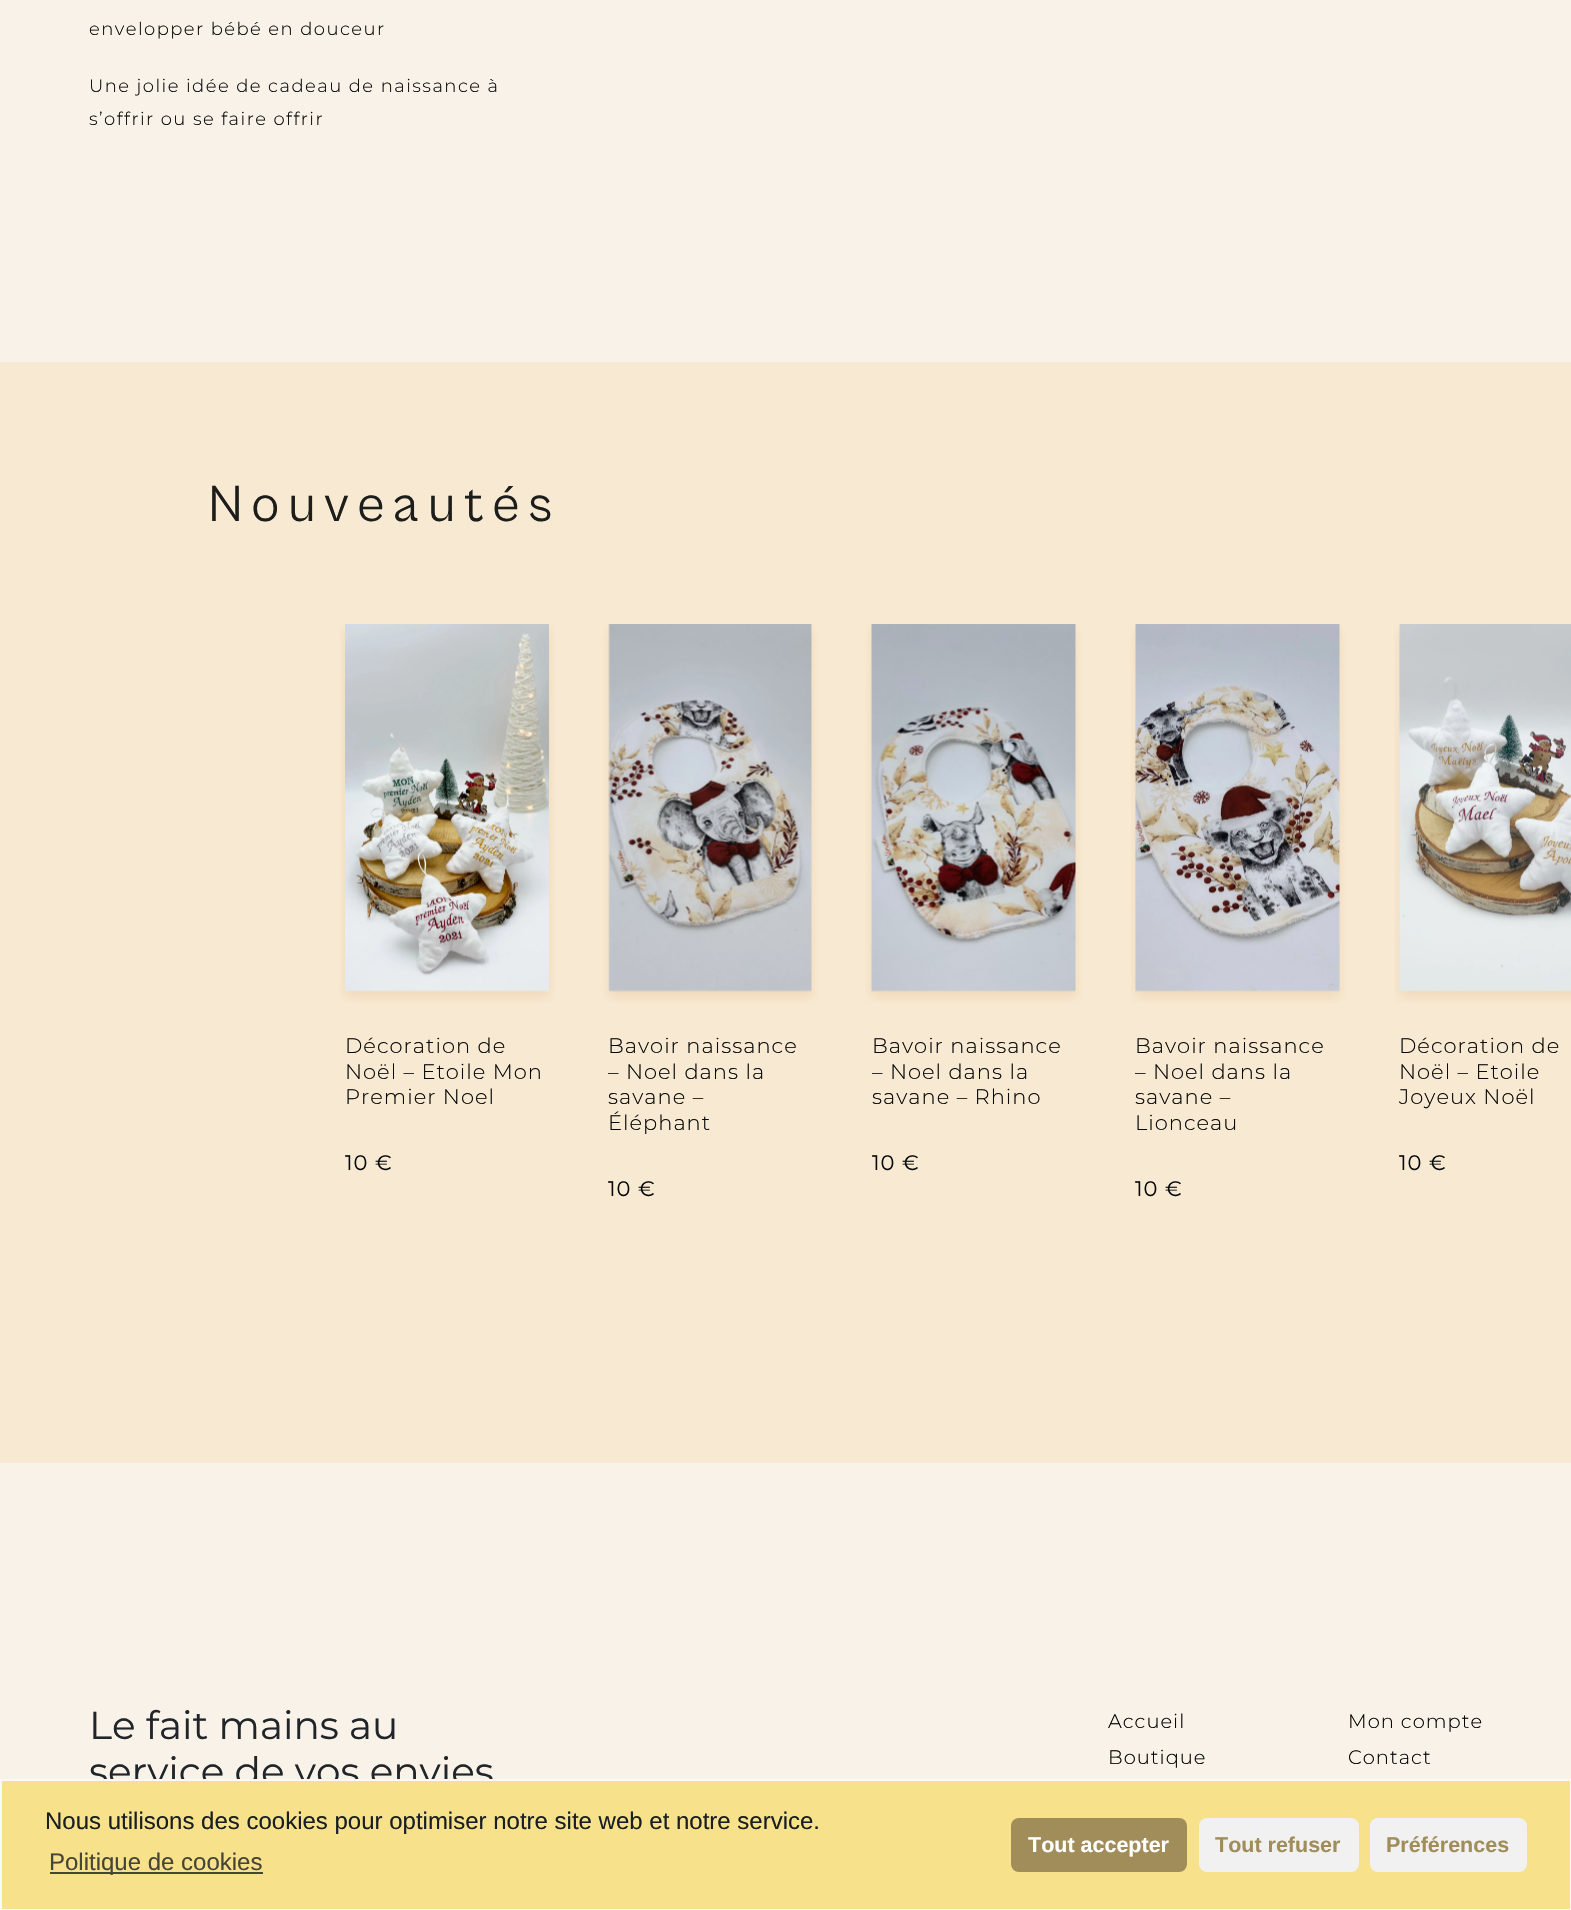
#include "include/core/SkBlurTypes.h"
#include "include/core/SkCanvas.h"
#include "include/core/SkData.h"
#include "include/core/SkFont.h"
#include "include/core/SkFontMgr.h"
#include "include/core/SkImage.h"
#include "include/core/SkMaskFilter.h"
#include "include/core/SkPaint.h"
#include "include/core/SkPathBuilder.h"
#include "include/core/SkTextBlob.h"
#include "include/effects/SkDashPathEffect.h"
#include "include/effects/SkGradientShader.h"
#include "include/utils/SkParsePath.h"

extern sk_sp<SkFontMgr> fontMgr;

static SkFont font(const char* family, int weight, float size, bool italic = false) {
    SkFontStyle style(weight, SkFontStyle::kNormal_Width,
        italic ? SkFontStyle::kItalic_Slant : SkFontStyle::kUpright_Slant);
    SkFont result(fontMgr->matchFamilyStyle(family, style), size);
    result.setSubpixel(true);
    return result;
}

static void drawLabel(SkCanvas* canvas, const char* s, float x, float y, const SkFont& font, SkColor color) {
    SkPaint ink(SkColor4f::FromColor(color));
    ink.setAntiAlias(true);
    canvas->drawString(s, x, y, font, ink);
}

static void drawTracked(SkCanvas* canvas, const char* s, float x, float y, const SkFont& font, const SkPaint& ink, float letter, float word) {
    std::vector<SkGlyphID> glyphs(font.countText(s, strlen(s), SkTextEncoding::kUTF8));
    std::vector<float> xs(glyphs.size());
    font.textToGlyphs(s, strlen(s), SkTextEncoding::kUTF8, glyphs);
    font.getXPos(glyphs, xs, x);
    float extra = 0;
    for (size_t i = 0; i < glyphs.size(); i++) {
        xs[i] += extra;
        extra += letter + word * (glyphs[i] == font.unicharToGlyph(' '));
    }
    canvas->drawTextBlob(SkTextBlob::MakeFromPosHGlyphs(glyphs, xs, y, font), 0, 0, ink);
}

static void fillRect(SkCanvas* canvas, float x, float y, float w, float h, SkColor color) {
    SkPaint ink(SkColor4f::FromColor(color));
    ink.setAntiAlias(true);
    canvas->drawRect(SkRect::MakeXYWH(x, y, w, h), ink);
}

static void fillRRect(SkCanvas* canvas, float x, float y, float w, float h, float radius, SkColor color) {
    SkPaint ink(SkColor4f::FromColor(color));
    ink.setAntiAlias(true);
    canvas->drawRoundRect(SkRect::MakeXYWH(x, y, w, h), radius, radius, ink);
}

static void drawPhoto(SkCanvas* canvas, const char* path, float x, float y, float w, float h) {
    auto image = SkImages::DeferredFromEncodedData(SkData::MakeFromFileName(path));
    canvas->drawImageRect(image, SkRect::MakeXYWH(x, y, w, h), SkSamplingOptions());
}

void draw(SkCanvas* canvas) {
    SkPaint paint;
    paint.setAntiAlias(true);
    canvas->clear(0xFFF8F2E8);
    SkFont font1 = font("Montserrat", 300, 18);
    paint.setColor(0xFF08090A);
    drawTracked(canvas, "envelopper bébé en douceur", 89, 35, font1, paint, 1.45f, 0);
    drawTracked(canvas, "Une jolie idée de cadeau de naissance à", 89, 92, font1, paint, 1.45f, 0);
    drawTracked(canvas, "s’offrir ou se faire offrir", 89, 125, font1, paint, 1.45f, 0);
    fillRect(canvas, 0, 362, 1571, 1101, 0xFFF8EAD2);
    SkFont font2 = font("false", 400, 52.5f);
    paint.setColor(0xFF1D1D1B);
    drawTracked(canvas, "Nouveautés", 208, 521, font2, paint, 8.5f, 0);
    drawPhoto(canvas, "assets/img1.png", 339, 624, 216, 379);
    SkFont font3 = font("Montserrat", 300, 21);
    paint.setColor(0xFF08090A);
    drawTracked(canvas, "Décoration de", 345, 1053, font3, paint, 1, 0);
    drawTracked(canvas, "Noël – Etoile Mon", 345, 1079, font3, paint, 1, 0);
    drawTracked(canvas, "Premier Noel", 345, 1104, font3, paint, 1, 0);
    SkFont font4 = font("Montserrat", 400, 21);
    drawTracked(canvas, "10 €", 345, 1170, font4, paint, 1, 0);
    drawPhoto(canvas, "assets/img2.png", 603, 624, 215, 379);
    drawTracked(canvas, "Bavoir naissance", 608, 1053, font3, paint, 1, 0);
    drawTracked(canvas, "– Noel dans la", 608, 1079, font3, paint, 1, 0);
    drawTracked(canvas, "savane –", 608, 1104, font3, paint, 1, 0);
    drawTracked(canvas, "Éléphant", 608, 1130, font3, paint, 1, 0);
    drawTracked(canvas, "10 €", 608, 1196, font4, paint, 1, 0);
    drawPhoto(canvas, "assets/img3.png", 865, 624, 217, 379);
    drawTracked(canvas, "Bavoir naissance", 872, 1053, font3, paint, 1, 0);
    drawTracked(canvas, "– Noel dans la", 872, 1079, font3, paint, 1, 0);
    drawTracked(canvas, "savane – Rhino", 872, 1104, font3, paint, 1, 0);
    drawTracked(canvas, "10 €", 872, 1170, font4, paint, 1, 0);
    drawPhoto(canvas, "assets/img4.png", 1130, 624, 215, 379);
    drawTracked(canvas, "Bavoir naissance", 1135, 1053, font3, paint, 1, 0);
    drawTracked(canvas, "– Noel dans la", 1135, 1079, font3, paint, 1, 0);
    drawTracked(canvas, "savane –", 1135, 1104, font3, paint, 1, 0);
    drawTracked(canvas, "Lionceau", 1135, 1130, font3, paint, 1, 0);
    drawTracked(canvas, "10 €", 1135, 1196, font4, paint, 1, 0);
    drawPhoto(canvas, "assets/img5.png", 1394, 624, 177, 379);
    drawTracked(canvas, "Décoration de", 1399, 1053, font3, paint, 1, 0);
    drawTracked(canvas, "Noël – Etoile", 1399, 1079, font3, paint, 1, 0);
    drawTracked(canvas, "Joyeux Noël", 1399, 1104, font3, paint, 1, 0);
    drawTracked(canvas, "10 €", 1399, 1170, font4, paint, 1, 0);
    SkFont font5 = font("Montserrat", 400, 39);
    drawLabel(canvas, "Le fait mains au", 89, 1739, font5, 0xFF212529);
    drawLabel(canvas, "service de vos envies", 89, 1785, font5, 0xFF212529);
    SkFont font6 = font("Montserrat", 300, 19.5f);
    paint.setColor(0xFF000000);
    drawTracked(canvas, "Accueil", 1108, 1728, font6, paint, 1, 0);
    drawTracked(canvas, "Boutique", 1108, 1764, font6, paint, 1, 0);
    drawTracked(canvas, "Mon compte", 1348, 1728, font6, paint, 1, 0);
    drawTracked(canvas, "Contact", 1348, 1764, font6, paint, 1, 0);
    paint.setColor(0xFFF7E18A);
    canvas->drawRect(SkRect::MakeXYWH(1, 1780, 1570, 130), paint);
    paint.setStroke(true);
    paint.setStrokeWidth(2);
    paint.setColor(0xFFF9F9F9);
    canvas->drawRect(SkRect::MakeXYWH(1, 1780, 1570, 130), paint);
    SkFont font7 = font("Liberation Sans", 400, 24);
    drawLabel(canvas, "Nous utilisons des cookies pour optimiser notre site web et notre service.", 45, 1829, font7, 0xFF191E23);
    fillRect(canvas, 50, 1872, 213, 2, 0xFF454538);
    drawLabel(canvas, "Politique de cookies", 49, 1870, font7, 0xFF454538);
    fillRRect(canvas, 1011, 1818, 176, 54, 8, 0xFFA08D59);
    SkFont font8 = font("Liberation Sans", 700, 21.5f);
    drawLabel(canvas, "Tout accepter", 1028, 1852, font8, 0xFFFFFFFF);
    fillRRect(canvas, 1199, 1818, 160, 54, 8, 0xFFF1F1F1);
    drawLabel(canvas, "Tout refuser", 1215, 1852, font8, 0xFFA08D59);
    fillRRect(canvas, 1370, 1818, 157, 54, 8, 0xFFF1F1F1);
    drawLabel(canvas, "Préférences", 1386, 1852, font8, 0xFFA08D59);
}
